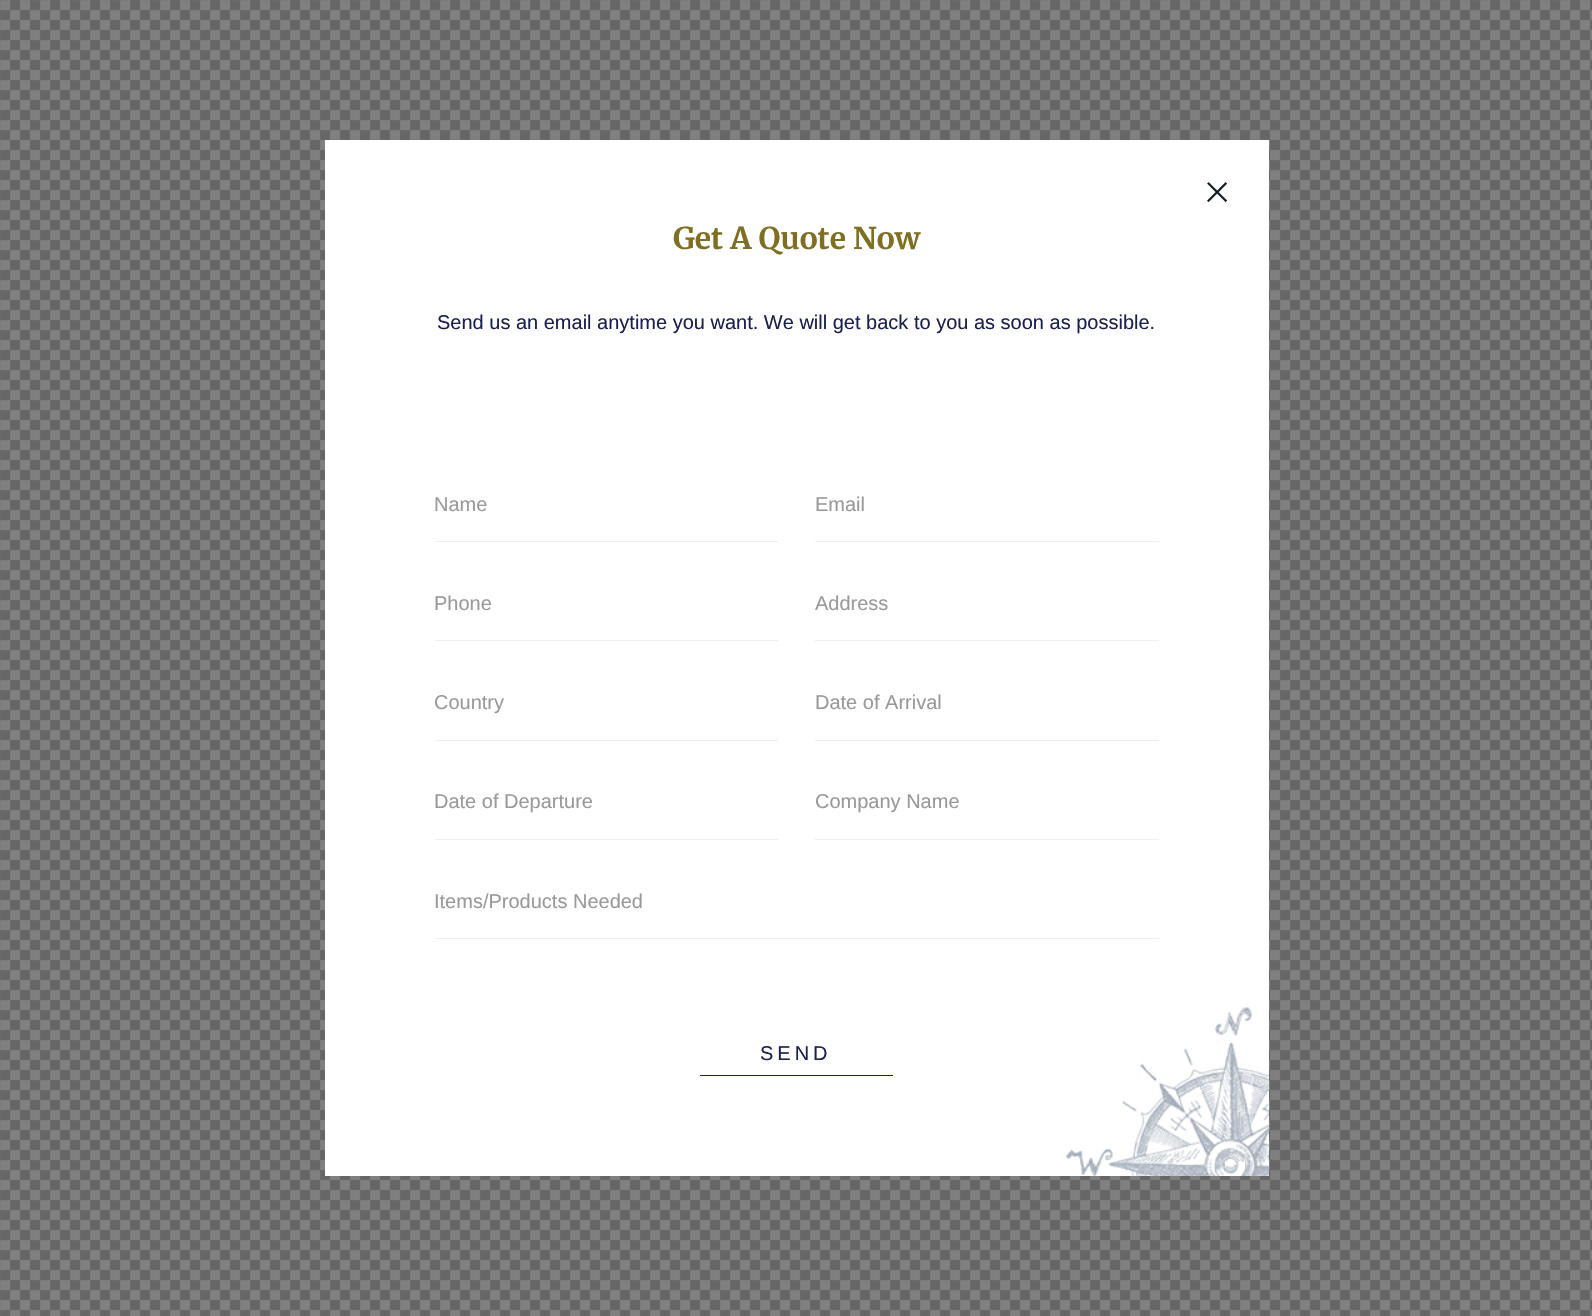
#include "include/core/SkBlurTypes.h"
#include "include/core/SkCanvas.h"
#include "include/core/SkData.h"
#include "include/core/SkFont.h"
#include "include/core/SkFontMgr.h"
#include "include/core/SkImage.h"
#include "include/core/SkMaskFilter.h"
#include "include/core/SkPaint.h"
#include "include/core/SkPathBuilder.h"
#include "include/core/SkTextBlob.h"
#include "include/effects/SkDashPathEffect.h"
#include "include/effects/SkGradientShader.h"
#include "include/utils/SkParsePath.h"

extern sk_sp<SkFontMgr> fontMgr;

static SkFont font(const char* family, int weight, float size, bool italic = false) {
    SkFontStyle style(weight, SkFontStyle::kNormal_Width,
        italic ? SkFontStyle::kItalic_Slant : SkFontStyle::kUpright_Slant);
    SkFont result(fontMgr->matchFamilyStyle(family, style), size);
    result.setSubpixel(true);
    return result;
}

static void drawLabel(SkCanvas* canvas, const char* s, float x, float y, const SkFont& font, SkColor color) {
    SkPaint ink(SkColor4f::FromColor(color));
    ink.setAntiAlias(true);
    canvas->drawString(s, x, y, font, ink);
}

static void drawTracked(SkCanvas* canvas, const char* s, float x, float y, const SkFont& font, const SkPaint& ink, float letter, float word) {
    std::vector<SkGlyphID> glyphs(font.countText(s, strlen(s), SkTextEncoding::kUTF8));
    std::vector<float> xs(glyphs.size());
    font.textToGlyphs(s, strlen(s), SkTextEncoding::kUTF8, glyphs);
    font.getXPos(glyphs, xs, x);
    float extra = 0;
    for (size_t i = 0; i < glyphs.size(); i++) {
        xs[i] += extra;
        extra += letter + word * (glyphs[i] == font.unicharToGlyph(' '));
    }
    canvas->drawTextBlob(SkTextBlob::MakeFromPosHGlyphs(glyphs, xs, y, font), 0, 0, ink);
}

static void fillRect(SkCanvas* canvas, float x, float y, float w, float h, SkColor color) {
    SkPaint ink(SkColor4f::FromColor(color));
    ink.setAntiAlias(true);
    canvas->drawRect(SkRect::MakeXYWH(x, y, w, h), ink);
}

static void drawPhoto(SkCanvas* canvas, const char* path, float x, float y, float w, float h) {
    auto image = SkImages::DeferredFromEncodedData(SkData::MakeFromFileName(path));
    canvas->drawImageRect(image, SkRect::MakeXYWH(x, y, w, h), SkSamplingOptions());
}

void draw(SkCanvas* canvas) {
    SkPaint paint;
    paint.setAntiAlias(true);
    canvas->clear(0xFFFFFFFF);
    drawPhoto(canvas, "assets/img1.png", 0, 0, 1592, 1316);
    fillRect(canvas, 325, 140, 944, 1036, 0xFFFFFFFF);
    drawPhoto(canvas, "assets/img2.png", 1207, 182, 21, 21);
    drawPhoto(canvas, "assets/img3.png", 1066, 1007, 203, 169);
    SkFont font1 = font("Merriweather", 700, 30);
    drawLabel(canvas, "Get A Quote Now", 673, 249, font1, 0xFF7F6F23);
    SkFont font2 = font("Liberation Sans", 400, 20);
    drawLabel(canvas, "Send us an email anytime you want. We will get back to you as soon as possible.", 437, 329, font2, 0xFF1A214F);
    fillRect(canvas, 435, 541, 343, 1, 0xFFEEEEEE);
    drawLabel(canvas, "Name", 434, 511, font2, 0xFF999999);
    fillRect(canvas, 815, 541, 344, 1, 0xFFEEEEEE);
    drawLabel(canvas, "Email", 815, 511, font2, 0xFF999999);
    fillRect(canvas, 435, 640, 343, 1, 0xFFEEEEEE);
    drawLabel(canvas, "Phone", 434, 610, font2, 0xFF999999);
    fillRect(canvas, 815, 640, 344, 1, 0xFFEEEEEE);
    drawLabel(canvas, "Address", 815, 610, font2, 0xFF999999);
    fillRect(canvas, 435, 740, 343, 1, 0xFFEEEEEE);
    drawLabel(canvas, "Country", 434, 709, font2, 0xFF999999);
    fillRect(canvas, 815, 740, 344, 1, 0xFFEEEEEE);
    drawLabel(canvas, "Date of Arrival", 815, 709, font2, 0xFF999999);
    fillRect(canvas, 435, 839, 343, 1, 0xFFEEEEEE);
    drawLabel(canvas, "Date of Departure", 434, 808, font2, 0xFF999999);
    fillRect(canvas, 815, 839, 344, 1, 0xFFEEEEEE);
    drawLabel(canvas, "Company Name", 815, 808, font2, 0xFF999999);
    fillRect(canvas, 435, 938, 724, 1, 0xFFEEEEEE);
    drawLabel(canvas, "Items/Products Needed", 434, 908, font2, 0xFF999999);
    fillRect(canvas, 700, 1075, 193, 1, 0xFF1A214F);
    paint.setColor(0xFF1A214F);
    drawTracked(canvas, "SEND", 760, 1060, font2, paint, 4, 0);
}
